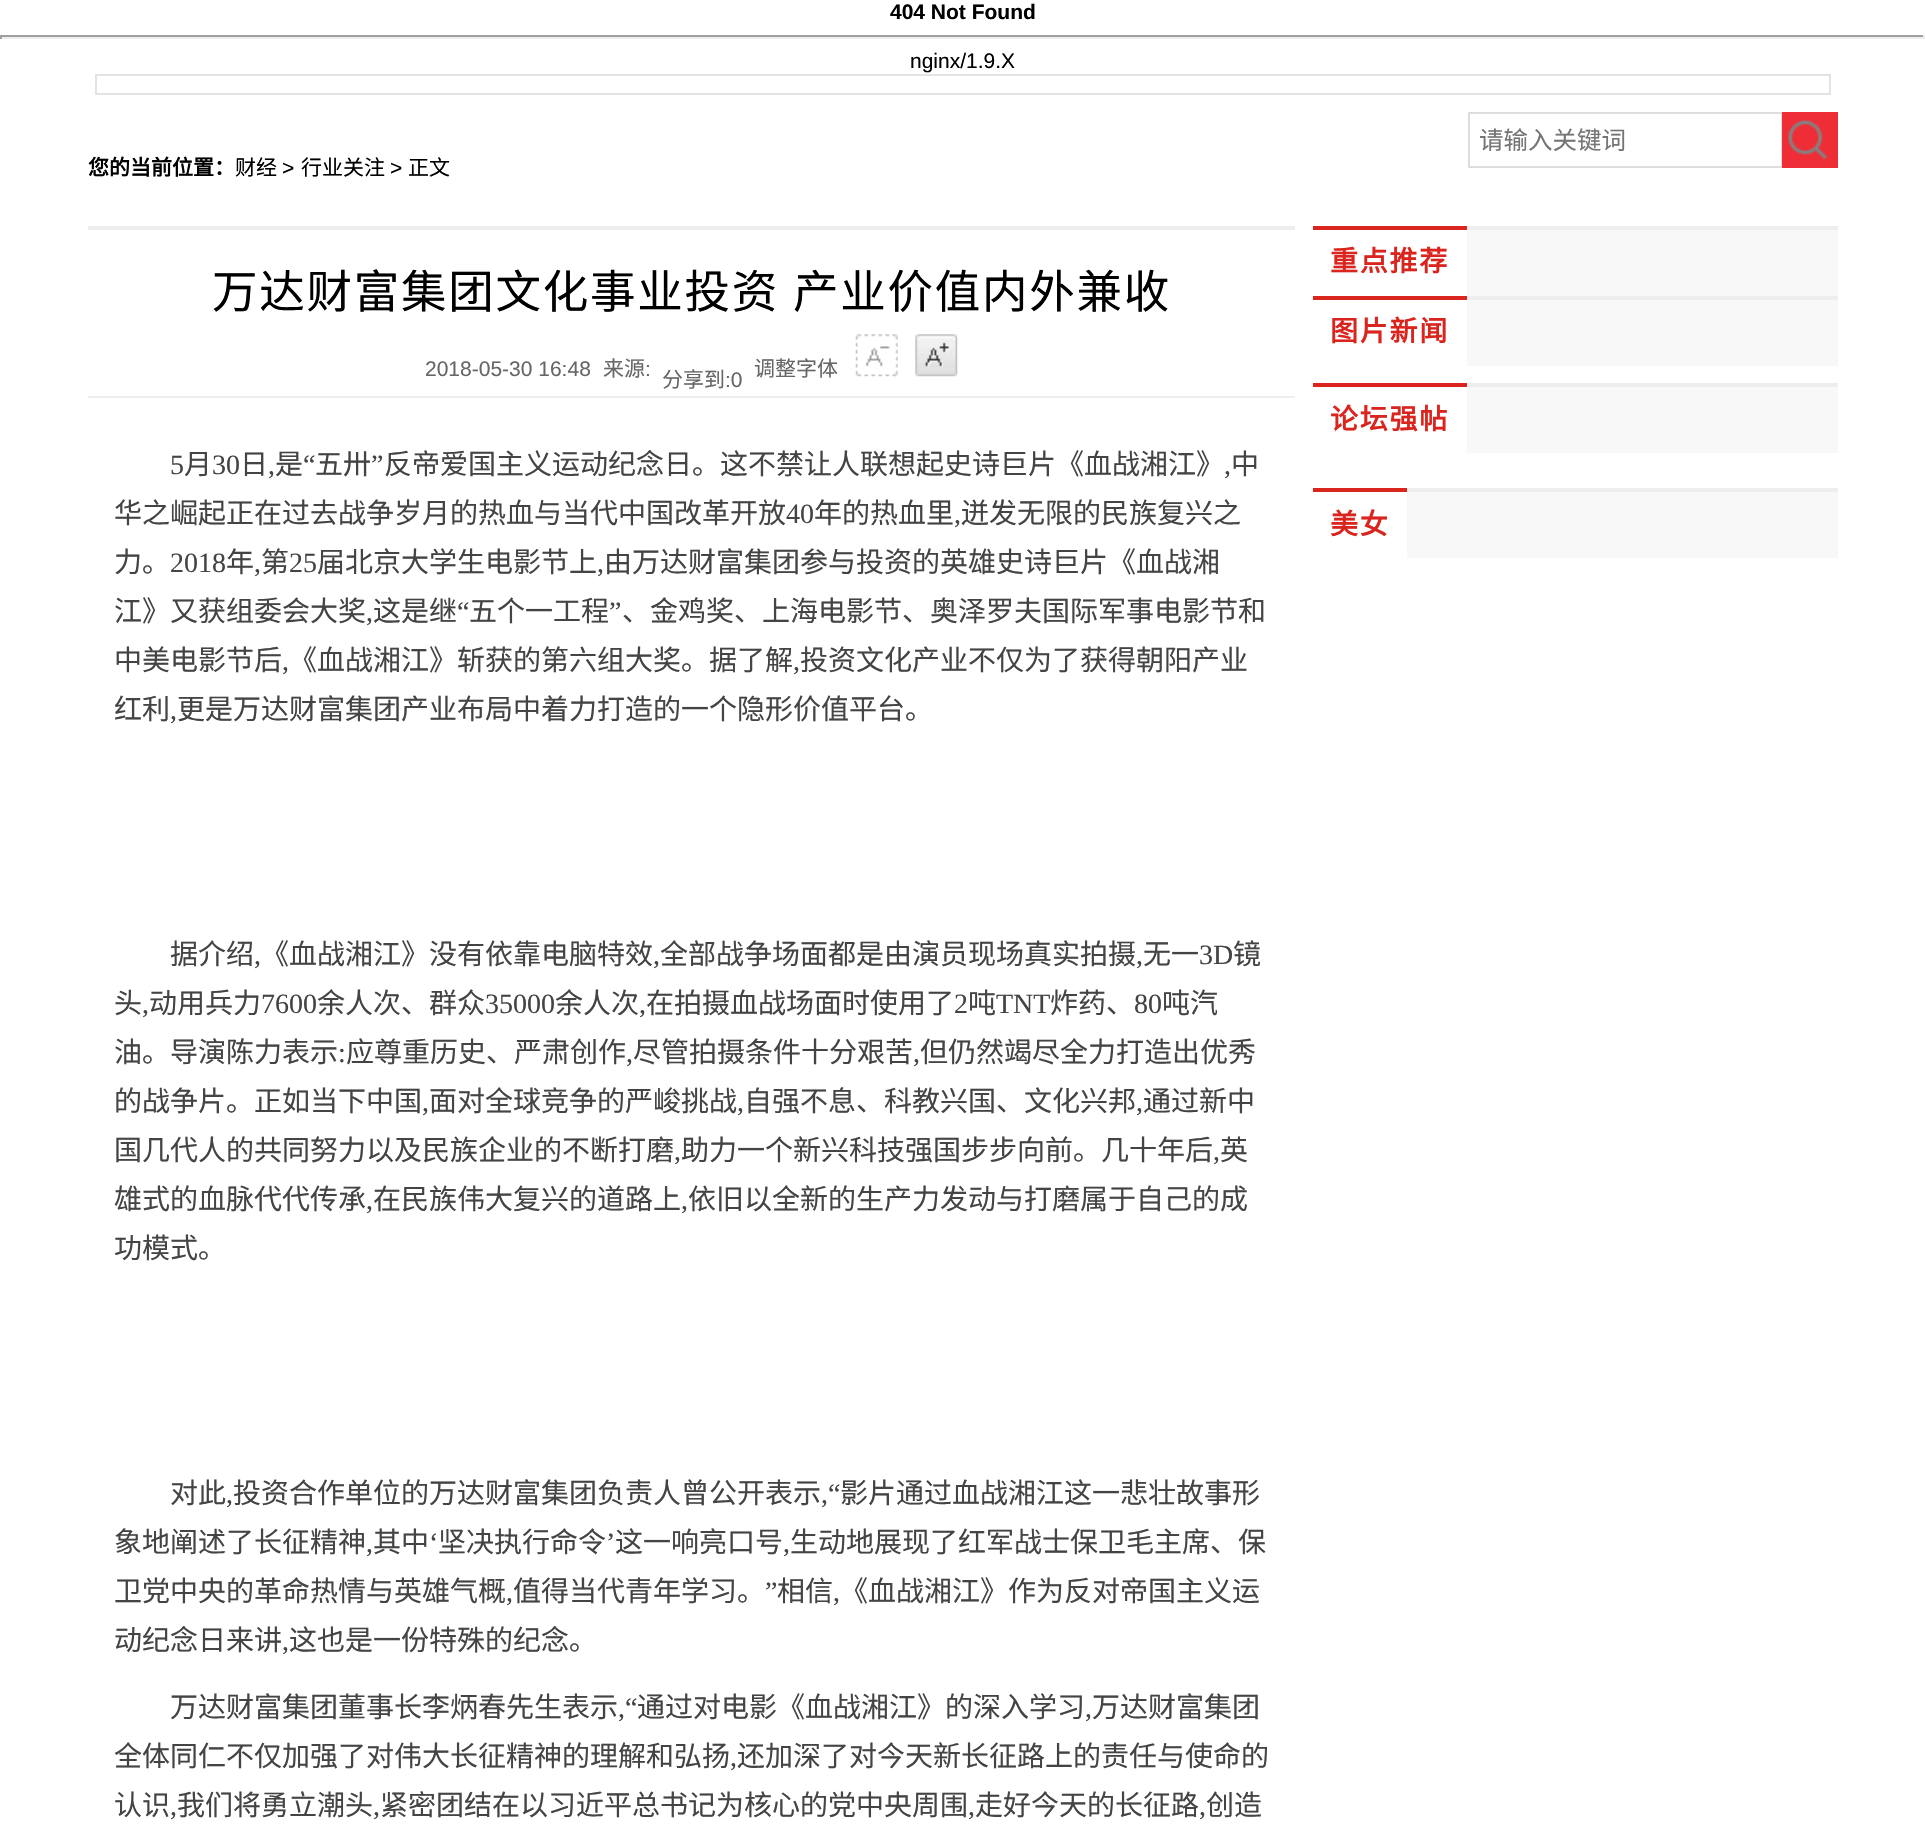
#include "include/core/SkBlurTypes.h"
#include "include/core/SkCanvas.h"
#include "include/core/SkData.h"
#include "include/core/SkFont.h"
#include "include/core/SkFontMgr.h"
#include "include/core/SkImage.h"
#include "include/core/SkMaskFilter.h"
#include "include/core/SkPaint.h"
#include "include/core/SkPathBuilder.h"
#include "include/core/SkTextBlob.h"
#include "include/effects/SkDashPathEffect.h"
#include "include/effects/SkGradientShader.h"
#include "include/utils/SkParsePath.h"

extern sk_sp<SkFontMgr> fontMgr;

static SkFont font(const char* family, int weight, float size, bool italic = false) {
    SkFontStyle style(weight, SkFontStyle::kNormal_Width,
        italic ? SkFontStyle::kItalic_Slant : SkFontStyle::kUpright_Slant);
    SkFont result(fontMgr->matchFamilyStyle(family, style), size);
    result.setSubpixel(true);
    return result;
}

static void drawLabel(SkCanvas* canvas, const char* s, float x, float y, const SkFont& font, SkColor color) {
    SkPaint ink(SkColor4f::FromColor(color));
    ink.setAntiAlias(true);
    canvas->drawString(s, x, y, font, ink);
}

static void drawTracked(SkCanvas* canvas, const char* s, float x, float y, const SkFont& font, const SkPaint& ink, float letter, float word) {
    std::vector<SkGlyphID> glyphs(font.countText(s, strlen(s), SkTextEncoding::kUTF8));
    std::vector<float> xs(glyphs.size());
    font.textToGlyphs(s, strlen(s), SkTextEncoding::kUTF8, glyphs);
    font.getXPos(glyphs, xs, x);
    float extra = 0;
    for (size_t i = 0; i < glyphs.size(); i++) {
        xs[i] += extra;
        extra += letter + word * (glyphs[i] == font.unicharToGlyph(' '));
    }
    canvas->drawTextBlob(SkTextBlob::MakeFromPosHGlyphs(glyphs, xs, y, font), 0, 0, ink);
}

static void fillRect(SkCanvas* canvas, float x, float y, float w, float h, SkColor color) {
    SkPaint ink(SkColor4f::FromColor(color));
    ink.setAntiAlias(true);
    canvas->drawRect(SkRect::MakeXYWH(x, y, w, h), ink);
}

static void drawPhoto(SkCanvas* canvas, const char* path, float x, float y, float w, float h) {
    auto image = SkImages::DeferredFromEncodedData(SkData::MakeFromFileName(path));
    canvas->drawImageRect(image, SkRect::MakeXYWH(x, y, w, h), SkSamplingOptions());
}

void draw(SkCanvas* canvas) {
    SkPaint paint;
    paint.setAntiAlias(true);
    canvas->clear(0xFFFFFFFF);
    SkFont font1 = font("Liberation Sans", 700, 21);
    drawLabel(canvas, "404 Not Found", 890, 19, font1, 0xFF000000);
    fillRect(canvas, 0, 35, 1925, 2, 0xFF9F9F9F);
    fillRect(canvas, 1923, 35, 2, 4, 0xFFEEEEEE);
    fillRect(canvas, 0, 37, 1925, 2, 0xFFEEEEEE);
    fillRect(canvas, 0, 35, 2, 4, 0xFF9F9F9F);
    SkFont font2 = font("Liberation Sans", 400, 21);
    drawLabel(canvas, "nginx/1.9.X", 910, 68, font2, 0xFF000000);
    paint.setStroke(true);
    paint.setStrokeWidth(2);
    paint.setColor(0xFFE3E3E3);
    canvas->drawRect(SkRect::MakeXYWH(96, 75, 1734, 19), paint);
    paint.setColor(0xFFDDDDDD);
    canvas->drawRect(SkRect::MakeXYWH(1469, 113, 313, 54), paint);
    SkFont font3 = font("Noto Sans CJK SC", 400, 24.5f);
    drawLabel(canvas, "请输入关键词", 1479, 149, font3, 0xFF757575);
    fillRect(canvas, 1782, 112, 56, 56, 0xFFEF2D36);
    drawPhoto(canvas, "assets/img1.png", 1788, 120, 41, 40);
    SkFont font4 = font("Noto Sans CJK SC", 700, 21);
    drawLabel(canvas, "您的当前位置：", 88, 175, font4, 0xFF000000);
    SkFont font5 = font("Noto Sans CJK SC", 400, 21);
    drawLabel(canvas, "财经", 235, 175, font5, 0xFF000000);
    drawLabel(canvas, ">", 282, 175, font2, 0xFF000000);
    drawLabel(canvas, "行业关注", 301, 175, font5, 0xFF000000);
    drawLabel(canvas, ">", 390, 175, font2, 0xFF000000);
    drawLabel(canvas, "正文", 408, 175, font5, 0xFF000000);
    fillRect(canvas, 88, 226, 1207, 4, 0xFFEEEEEE);
    SkFont font6 = font("Noto Sans CJK SC", 400, 45.5f);
    paint.setStroke(false);
    paint.setColor(0xFF000000);
    drawTracked(canvas, "万达财富集团文化事业投资 产业价值内外兼收", 212, 308, font6, paint, 1.75f, 2);
    fillRect(canvas, 88, 396, 1207, 2, 0xFFEEEEEE);
    drawLabel(canvas, "2018-05-30 16:48", 425, 376, font2, 0xFF666666);
    drawLabel(canvas, "来源", 603, 376, font5, 0xFF666666);
    drawLabel(canvas, ":", 645, 376, font2, 0xFF666666);
    drawLabel(canvas, "分享到", 662, 387, font5, 0xFF666666);
    drawLabel(canvas, ":0", 725, 387, font2, 0xFF666666);
    drawLabel(canvas, "调整字体", 754, 376, font5, 0xFF666666);
    drawPhoto(canvas, "assets/img2.png", 855, 334, 43, 43);
    drawPhoto(canvas, "assets/img3.png", 915, 334, 43, 43);
    SkFont font7 = font("Liberation Serif", 400, 28);
    drawLabel(canvas, "5", 170, 474, font7, 0xFF444444);
    SkFont font8 = font("Noto Sans CJK SC", 400, 28);
    drawLabel(canvas, "月", 184, 474, font8, 0xFF444444);
    drawLabel(canvas, "30", 212, 474, font7, 0xFF444444);
    drawLabel(canvas, "日", 240, 474, font8, 0xFF444444);
    drawLabel(canvas, "是", 275, 474, font8, 0xFF444444);
    drawLabel(canvas, "“", 303, 474, font7, 0xFF444444);
    drawLabel(canvas, "五卅", 315, 474, font8, 0xFF444444);
    drawLabel(canvas, "”", 371, 474, font7, 0xFF444444);
    drawLabel(canvas, "反帝爱国主义运动纪念日。这不禁让人联想起史诗巨片《血战湘江》", 384, 474, font8, 0xFF444444);
    drawLabel(canvas, "中", 1231, 474, font8, 0xFF444444);
    drawLabel(canvas, ",", 268, 474, font7, 0xFF444444);
    drawLabel(canvas, ",", 1224, 474, font7, 0xFF444444);
    drawLabel(canvas, "华之崛起正在过去战争岁月的热血与当代中国改革开放", 114, 523, font8, 0xFF444444);
    drawLabel(canvas, "40", 786, 523, font7, 0xFF444444);
    drawLabel(canvas, "年的热血里", 814, 523, font8, 0xFF444444);
    drawLabel(canvas, ",", 954, 523, font7, 0xFF444444);
    drawLabel(canvas, "迸发无限的民族复兴之", 961, 523, font8, 0xFF444444);
    drawLabel(canvas, "力。", 114, 572, font8, 0xFF444444);
    drawLabel(canvas, "2018", 170, 572, font7, 0xFF444444);
    drawLabel(canvas, "年", 226, 572, font8, 0xFF444444);
    drawLabel(canvas, ",", 254, 572, font7, 0xFF444444);
    drawLabel(canvas, "第", 261, 572, font8, 0xFF444444);
    drawLabel(canvas, "25", 289, 572, font7, 0xFF444444);
    drawLabel(canvas, "届北京大学生电影节上", 317, 572, font8, 0xFF444444);
    drawLabel(canvas, ",", 597, 572, font7, 0xFF444444);
    drawLabel(canvas, "由万达财富集团参与投资的英雄史诗巨片《血战湘", 604, 572, font8, 0xFF444444);
    drawLabel(canvas, "江》又获组委会大奖", 114, 621, font8, 0xFF444444);
    drawLabel(canvas, "这是继", 373, 621, font8, 0xFF444444);
    drawLabel(canvas, "“", 457, 621, font7, 0xFF444444);
    drawLabel(canvas, "五个一工程", 469, 621, font8, 0xFF444444);
    drawLabel(canvas, "”", 609, 621, font7, 0xFF444444);
    drawLabel(canvas, "、金鸡奖、上海电影节、奥泽罗夫国际军事电影节和", 622, 621, font8, 0xFF444444);
    drawLabel(canvas, ",", 366, 621, font7, 0xFF444444);
    drawLabel(canvas, "中美电影节后", 114, 670, font8, 0xFF444444);
    drawLabel(canvas, ",", 282, 670, font7, 0xFF444444);
    drawLabel(canvas, "《血战湘江》斩获的第六组大奖。据了解", 289, 670, font8, 0xFF444444);
    drawLabel(canvas, ",", 793, 670, font7, 0xFF444444);
    drawLabel(canvas, "投资文化产业不仅为了获得朝阳产业", 800, 670, font8, 0xFF444444);
    drawLabel(canvas, "红利", 114, 719, font8, 0xFF444444);
    drawLabel(canvas, ",", 170, 719, font7, 0xFF444444);
    drawLabel(canvas, "更是万达财富集团产业布局中着力打造的一个隐形价值平台。", 177, 719, font8, 0xFF444444);
    drawLabel(canvas, "据介绍", 170, 964, font8, 0xFF444444);
    drawLabel(canvas, ",", 254, 964, font7, 0xFF444444);
    drawLabel(canvas, "《血战湘江》没有依靠电脑特效", 261, 964, font8, 0xFF444444);
    drawLabel(canvas, ",", 653, 964, font7, 0xFF444444);
    drawLabel(canvas, "全部战争场面都是由演员现场真实拍摄", 660, 964, font8, 0xFF444444);
    drawLabel(canvas, ",", 1136, 964, font7, 0xFF444444);
    drawLabel(canvas, "无一", 1143, 964, font8, 0xFF444444);
    drawLabel(canvas, "3D", 1199, 964, font7, 0xFF444444);
    drawLabel(canvas, "镜", 1233, 964, font8, 0xFF444444);
    drawLabel(canvas, "头", 114, 1013, font8, 0xFF444444);
    drawLabel(canvas, ",", 142, 1013, font7, 0xFF444444);
    drawLabel(canvas, "动用兵力", 149, 1013, font8, 0xFF444444);
    drawLabel(canvas, "7600", 261, 1013, font7, 0xFF444444);
    drawLabel(canvas, "余人次、群众", 317, 1013, font8, 0xFF444444);
    drawLabel(canvas, "35000", 485, 1013, font7, 0xFF444444);
    drawLabel(canvas, "余人次", 555, 1013, font8, 0xFF444444);
    drawLabel(canvas, ",", 639, 1013, font7, 0xFF444444);
    drawLabel(canvas, "在拍摄血战场面时使用了", 646, 1013, font8, 0xFF444444);
    drawLabel(canvas, "2", 954, 1013, font7, 0xFF444444);
    drawLabel(canvas, "吨", 968, 1013, font8, 0xFF444444);
    drawLabel(canvas, "TNT", 996, 1013, font7, 0xFF444444);
    drawLabel(canvas, "炸药、", 1050, 1013, font8, 0xFF444444);
    drawLabel(canvas, "80", 1134, 1013, font7, 0xFF444444);
    drawLabel(canvas, "吨汽", 1162, 1013, font8, 0xFF444444);
    drawLabel(canvas, "油。导演陈力表示", 114, 1062, font8, 0xFF444444);
    drawLabel(canvas, ":", 338, 1062, font7, 0xFF444444);
    drawLabel(canvas, "应尊重历史、严肃创作", 346, 1062, font8, 0xFF444444);
    drawLabel(canvas, ",", 626, 1062, font7, 0xFF444444);
    drawLabel(canvas, "尽管拍摄条件十分艰苦", 633, 1062, font8, 0xFF444444);
    drawLabel(canvas, ",", 913, 1062, font7, 0xFF444444);
    drawLabel(canvas, "但仍然竭尽全力打造出优秀", 920, 1062, font8, 0xFF444444);
    drawLabel(canvas, "的战争片。正如当下中国", 114, 1111, font8, 0xFF444444);
    drawLabel(canvas, ",", 422, 1111, font7, 0xFF444444);
    drawLabel(canvas, "面对全球竞争的严峻挑战", 429, 1111, font8, 0xFF444444);
    drawLabel(canvas, ",", 737, 1111, font7, 0xFF444444);
    drawLabel(canvas, "自强不息、科教兴国、文化兴邦", 744, 1111, font8, 0xFF444444);
    drawLabel(canvas, ",", 1136, 1111, font7, 0xFF444444);
    drawLabel(canvas, "通过新中", 1143, 1111, font8, 0xFF444444);
    drawLabel(canvas, "国几代人的共同努力以及民族企业的不断打磨", 114, 1160, font8, 0xFF444444);
    drawLabel(canvas, ",", 674, 1160, font7, 0xFF444444);
    drawLabel(canvas, "助力一个新兴科技强国步步向前。几十年后", 681, 1160, font8, 0xFF444444);
    drawLabel(canvas, ",", 1213, 1160, font7, 0xFF444444);
    drawLabel(canvas, "英", 1220, 1160, font8, 0xFF444444);
    drawLabel(canvas, "雄式的血脉代代传承", 114, 1209, font8, 0xFF444444);
    drawLabel(canvas, ",", 366, 1209, font7, 0xFF444444);
    drawLabel(canvas, "在民族伟大复兴的道路上", 373, 1209, font8, 0xFF444444);
    drawLabel(canvas, ",", 681, 1209, font7, 0xFF444444);
    drawLabel(canvas, "依旧以全新的生产力发动与打磨属于自己的成", 688, 1209, font8, 0xFF444444);
    drawLabel(canvas, "功模式。", 114, 1258, font8, 0xFF444444);
    drawLabel(canvas, "对此", 170, 1503, font8, 0xFF444444);
    drawLabel(canvas, ",", 226, 1503, font7, 0xFF444444);
    drawLabel(canvas, "投资合作单位的万达财富集团负责人曾公开表示", 233, 1503, font8, 0xFF444444);
    drawLabel(canvas, ",“", 821, 1503, font7, 0xFF444444);
    drawLabel(canvas, "影片通过血战湘江这一悲壮故事形", 840, 1503, font8, 0xFF444444);
    drawLabel(canvas, "象地阐述了长征精神", 114, 1552, font8, 0xFF444444);
    drawLabel(canvas, "其中", 373, 1552, font8, 0xFF444444);
    drawLabel(canvas, "‘", 429, 1552, font7, 0xFF444444);
    drawLabel(canvas, "坚决执行命令", 438, 1552, font8, 0xFF444444);
    drawLabel(canvas, "’", 606, 1552, font7, 0xFF444444);
    drawLabel(canvas, "这一响亮口号", 615, 1552, font8, 0xFF444444);
    drawLabel(canvas, "生动地展现了红军战士保卫毛主席、保", 790, 1552, font8, 0xFF444444);
    drawLabel(canvas, ",", 366, 1552, font7, 0xFF444444);
    drawLabel(canvas, ",", 783, 1552, font7, 0xFF444444);
    drawLabel(canvas, "卫党中央的革命热情与英雄气概", 114, 1601, font8, 0xFF444444);
    drawLabel(canvas, "值得当代青年学习。", 513, 1601, font8, 0xFF444444);
    drawLabel(canvas, "”", 765, 1601, font7, 0xFF444444);
    drawLabel(canvas, "相信", 777, 1601, font8, 0xFF444444);
    drawLabel(canvas, "《血战湘江》作为反对帝国主义运", 840, 1601, font8, 0xFF444444);
    drawLabel(canvas, ",", 506, 1601, font7, 0xFF444444);
    drawLabel(canvas, ",", 833, 1601, font7, 0xFF444444);
    drawLabel(canvas, "动纪念日来讲", 114, 1650, font8, 0xFF444444);
    drawLabel(canvas, ",", 282, 1650, font7, 0xFF444444);
    drawLabel(canvas, "这也是一份特殊的纪念。", 289, 1650, font8, 0xFF444444);
    drawLabel(canvas, "万达财富集团董事长李炳春先生表示", 170, 1717, font8, 0xFF444444);
    drawLabel(canvas, ",“", 618, 1717, font7, 0xFF444444);
    drawLabel(canvas, "通过对电影《血战湘江》的深入学习", 637, 1717, font8, 0xFF444444);
    drawLabel(canvas, ",", 1085, 1717, font7, 0xFF444444);
    drawLabel(canvas, "万达财富集团", 1092, 1717, font8, 0xFF444444);
    drawLabel(canvas, "全体同仁不仅加强了对伟大长征精神的理解和弘扬", 114, 1766, font8, 0xFF444444);
    drawLabel(canvas, ",", 730, 1766, font7, 0xFF444444);
    drawLabel(canvas, "还加深了对今天新长征路上的责任与使命的", 737, 1766, font8, 0xFF444444);
    drawLabel(canvas, "认识", 114, 1815, font8, 0xFF444444);
    drawLabel(canvas, ",", 170, 1815, font7, 0xFF444444);
    drawLabel(canvas, "我们将勇立潮头", 177, 1815, font8, 0xFF444444);
    drawLabel(canvas, ",", 373, 1815, font7, 0xFF444444);
    drawLabel(canvas, "紧密团结在以习近平总书记为核心的党中央周围", 380, 1815, font8, 0xFF444444);
    drawLabel(canvas, ",", 968, 1815, font7, 0xFF444444);
    drawLabel(canvas, "走好今天的长征路", 975, 1815, font8, 0xFF444444);
    drawLabel(canvas, ",", 1199, 1815, font7, 0xFF444444);
    drawLabel(canvas, "创造", 1206, 1815, font8, 0xFF444444);
    fillRect(canvas, 1467, 230, 371, 66, 0xFFF8F8F8);
    fillRect(canvas, 1467, 226, 371, 4, 0xFFEEEEEE);
    fillRect(canvas, 1313, 226, 154, 4, 0xFFDA251E);
    SkFont font9 = font("Noto Sans CJK SC", 700, 28);
    paint.setColor(0xFFDA251E);
    drawTracked(canvas, "重点推荐", 1330, 271, font9, paint, 1.75f, 0);
    fillRect(canvas, 1467, 300, 371, 66, 0xFFF8F8F8);
    fillRect(canvas, 1467, 296, 371, 4, 0xFFEEEEEE);
    fillRect(canvas, 1313, 296, 154, 4, 0xFFDA251E);
    drawTracked(canvas, "图片新闻", 1330, 341, font9, paint, 1.75f, 0);
    fillRect(canvas, 1467, 387, 371, 66, 0xFFF8F8F8);
    fillRect(canvas, 1467, 383, 371, 4, 0xFFEEEEEE);
    fillRect(canvas, 1313, 383, 154, 4, 0xFFDA251E);
    drawTracked(canvas, "论坛强帖", 1330, 429, font9, paint, 1.75f, 0);
    fillRect(canvas, 1407, 492, 431, 66, 0xFFF8F8F8);
    fillRect(canvas, 1407, 488, 431, 4, 0xFFEEEEEE);
    fillRect(canvas, 1313, 488, 94, 4, 0xFFDA251E);
    drawTracked(canvas, "美女", 1330, 534, font9, paint, 1.75f, 0);
}
